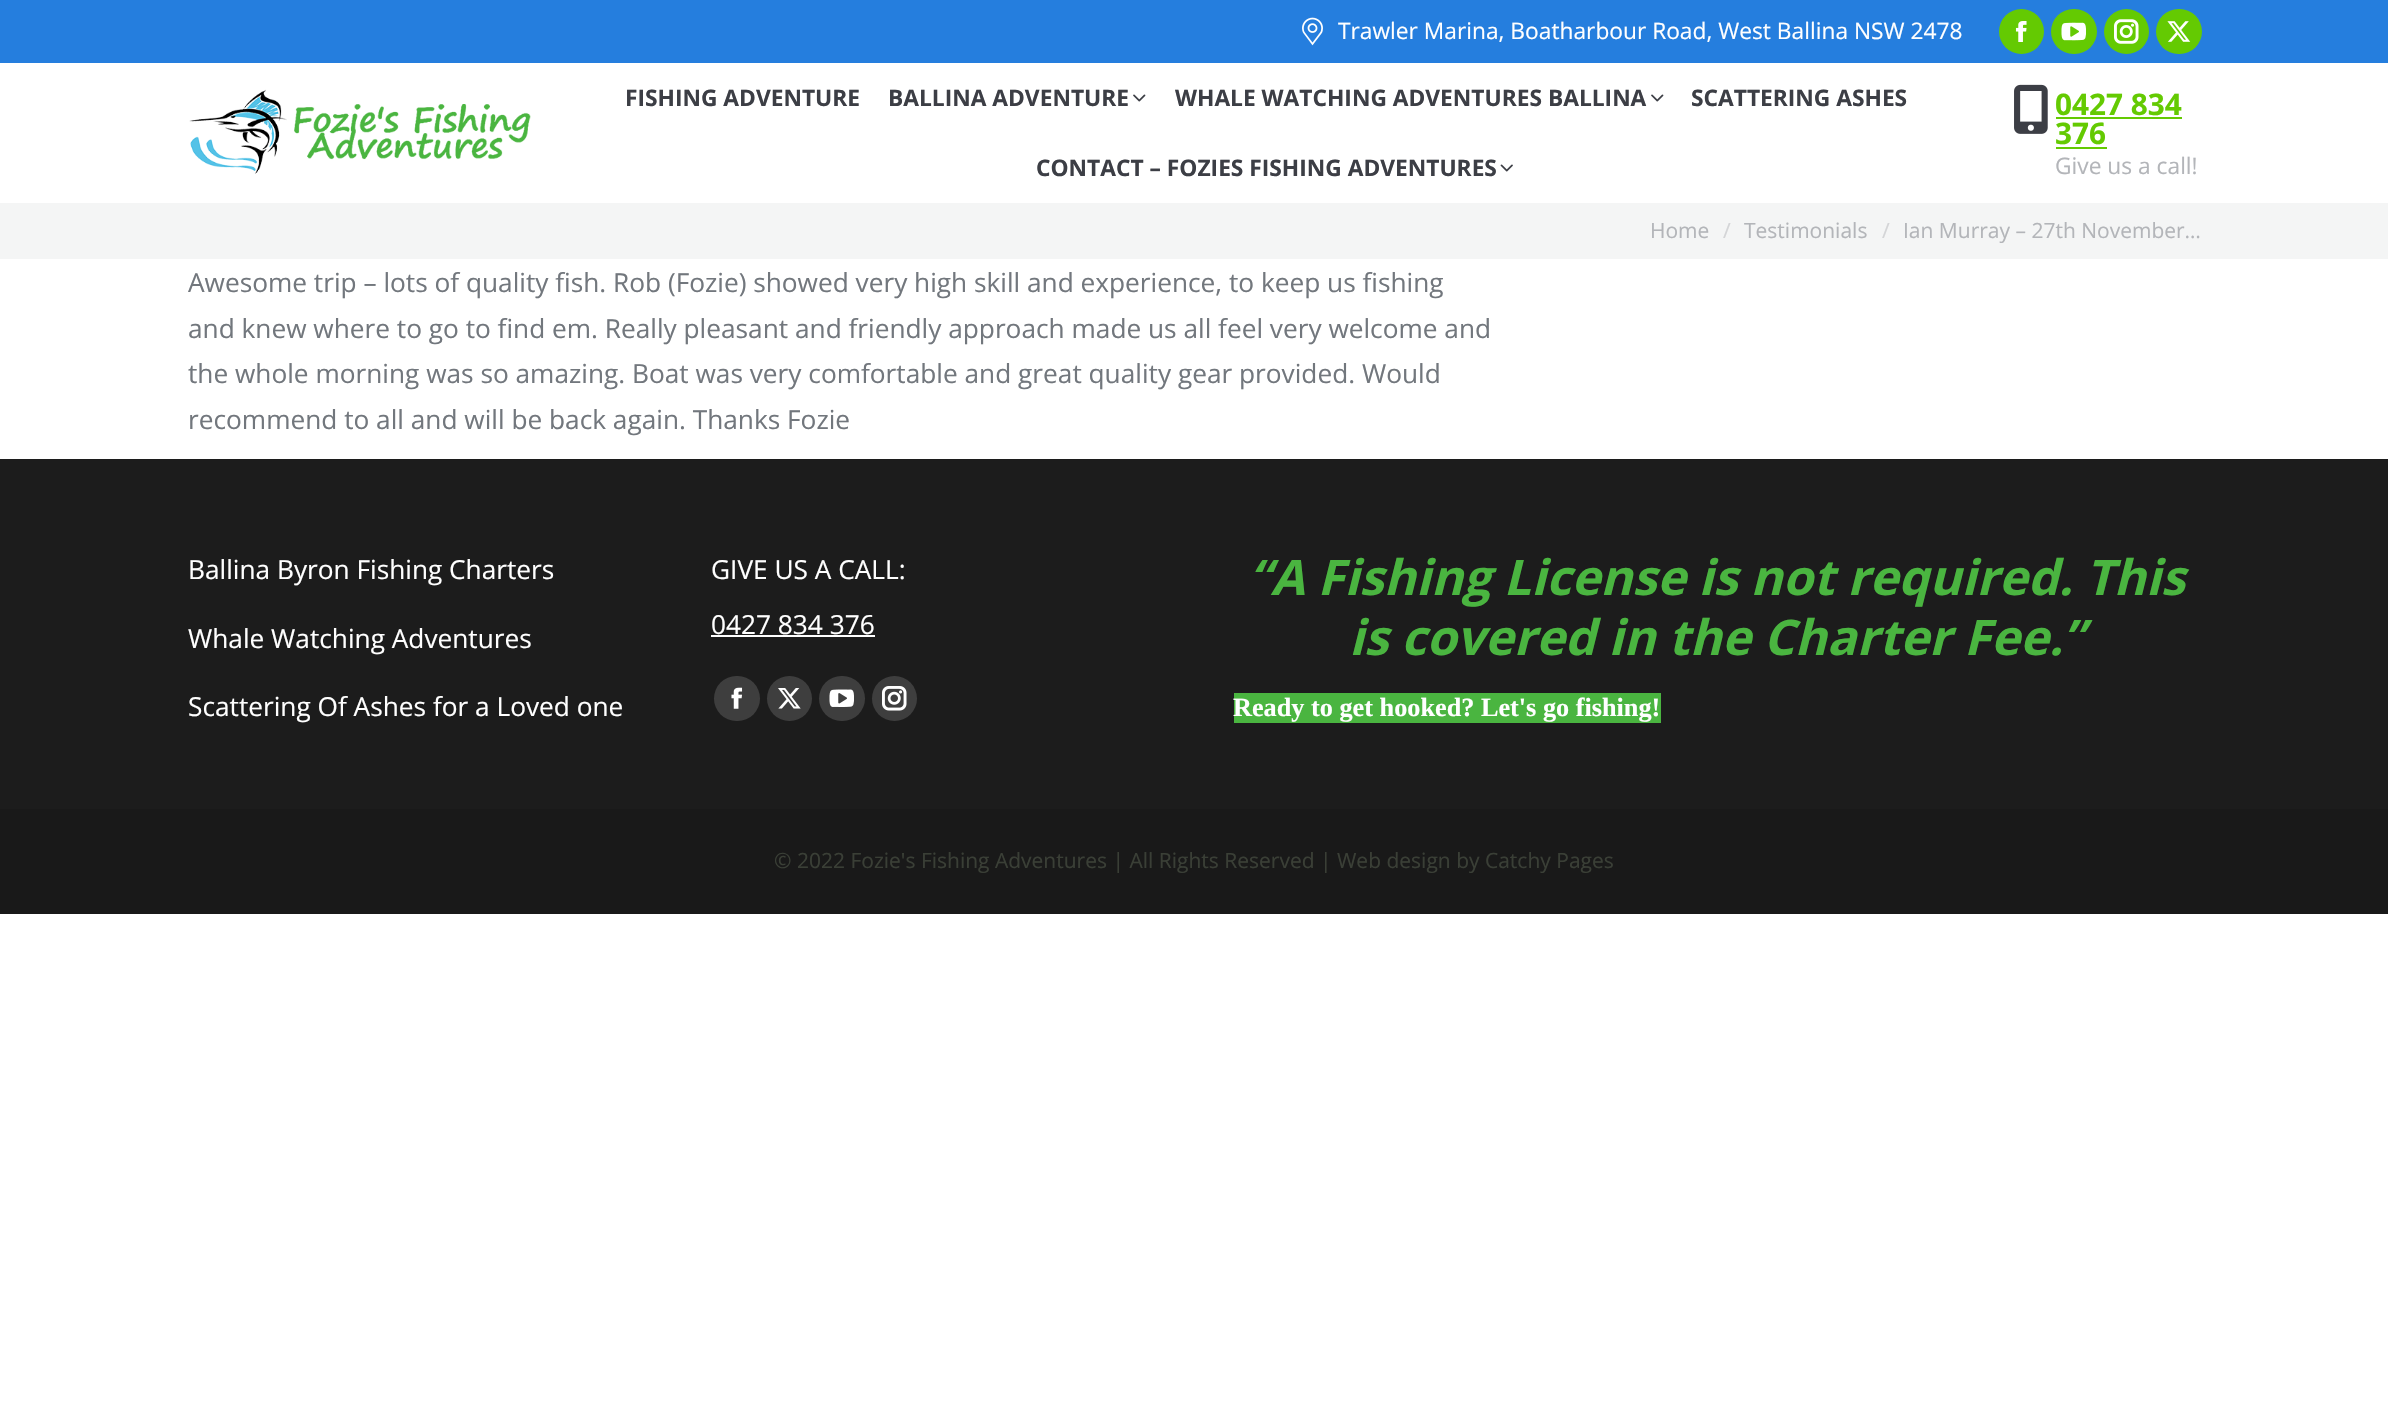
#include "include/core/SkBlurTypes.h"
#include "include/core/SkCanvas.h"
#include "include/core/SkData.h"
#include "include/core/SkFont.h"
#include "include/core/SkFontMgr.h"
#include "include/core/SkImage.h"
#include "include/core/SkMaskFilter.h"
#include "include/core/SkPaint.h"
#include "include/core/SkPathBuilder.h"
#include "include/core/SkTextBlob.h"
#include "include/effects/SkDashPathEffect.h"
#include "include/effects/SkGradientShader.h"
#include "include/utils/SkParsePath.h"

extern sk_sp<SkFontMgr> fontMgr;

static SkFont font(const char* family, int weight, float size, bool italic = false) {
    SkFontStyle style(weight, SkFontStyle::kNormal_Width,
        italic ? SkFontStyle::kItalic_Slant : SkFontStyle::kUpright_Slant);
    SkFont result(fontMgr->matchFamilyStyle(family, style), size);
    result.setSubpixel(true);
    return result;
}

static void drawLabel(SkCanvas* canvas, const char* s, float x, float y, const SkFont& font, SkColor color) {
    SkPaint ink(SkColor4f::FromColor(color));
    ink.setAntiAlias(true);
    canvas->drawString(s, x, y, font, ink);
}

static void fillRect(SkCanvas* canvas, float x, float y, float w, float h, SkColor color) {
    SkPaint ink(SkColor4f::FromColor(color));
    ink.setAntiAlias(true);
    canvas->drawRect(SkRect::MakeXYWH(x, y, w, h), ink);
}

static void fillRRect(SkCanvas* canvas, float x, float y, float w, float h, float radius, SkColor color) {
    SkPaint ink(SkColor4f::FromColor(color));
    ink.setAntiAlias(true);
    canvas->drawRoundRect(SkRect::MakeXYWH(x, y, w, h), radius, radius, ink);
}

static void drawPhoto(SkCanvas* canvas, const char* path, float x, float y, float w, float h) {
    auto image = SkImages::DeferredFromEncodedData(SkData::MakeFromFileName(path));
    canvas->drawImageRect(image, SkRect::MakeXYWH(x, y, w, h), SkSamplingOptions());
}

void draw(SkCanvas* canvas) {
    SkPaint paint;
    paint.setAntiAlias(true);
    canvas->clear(0xFFFFFFFF);
    fillRect(canvas, 0, 0, 2388, 63, 0xFF257EDE);
    drawPhoto(canvas, "assets/img1.png", 1302, 17, 21, 29);
    SkFont font1 = font("Open Sans", 400, 22.75f);
    drawLabel(canvas, "Trawler Marina, Boatharbour Road, West Ballina NSW 2478", 1338, 39, font1, 0xFFFFFFFF);
    paint.setColor(0xFF64CA02);
    canvas->drawCircle(2021.5f, 31.5f, 22.5f, paint);
    drawPhoto(canvas, "assets/img2.png", 2015, 21, 12, 21);
    fillRRect(canvas, 2051, 9, 46, 45, 22.5f, 0xFF64CA02);
    drawPhoto(canvas, "assets/img3.png", 2061, 22, 25, 19);
    canvas->drawCircle(2126.5f, 31.5f, 22.5f, paint);
    drawPhoto(canvas, "assets/img4.png", 2114, 19, 25, 25);
    fillRRect(canvas, 2156, 9, 46, 45, 22.5f, 0xFF64CA02);
    drawPhoto(canvas, "assets/img5.png", 2167, 21, 24, 21);
    drawPhoto(canvas, "assets/img6.png", 189, 89, 342, 85);
    SkFont font2 = font("Open Sans", 700, 22.75f);
    drawLabel(canvas, "FISHING ADVENTURE", 625, 106, font2, 0xFF3C3E45);
    drawLabel(canvas, "BALLINA ADVENTURE", 888, 106, font2, 0xFF3C3E45);
    drawPhoto(canvas, "assets/img7.png", 1133, 94, 13, 8);
    drawLabel(canvas, "WHALE WATCHING ADVENTURES BALLINA", 1175, 106, font2, 0xFF3C3E45);
    drawPhoto(canvas, "assets/img7.png", 1651, 94, 13, 8);
    drawLabel(canvas, "SCATTERING ASHES", 1691, 106, font2, 0xFF3C3E45);
    drawLabel(canvas, "CONTACT – FOZIES FISHING ADVENTURES", 1036, 176, font2, 0xFF3C3E45);
    drawPhoto(canvas, "assets/img8.png", 1500, 164, 13, 8);
    drawPhoto(canvas, "assets/img9.png", 2014, 84, 34, 50);
    SkFont font3 = font("Open Sans", 700, 29.75f);
    drawLabel(canvas, "0427 834", 2055, 115, font3, 0xFF64CA02);
    fillRect(canvas, 2056, 117, 126, 2, 0xFF64CA02);
    drawLabel(canvas, "376", 2055, 144, font3, 0xFF64CA02);
    fillRect(canvas, 2056, 147, 51, 2, 0xFF64CA02);
    drawLabel(canvas, "Give us a call!", 2055, 174, font1, 0xFFB3B5B9);
    fillRect(canvas, 0, 203, 2388, 56, 0xFFF4F5F5);
    SkFont font4 = font("Open Sans", 400, 21);
    drawLabel(canvas, "Home", 1650, 238, font4, 0xFFB3B5B9);
    drawLabel(canvas, "/", 1723, 238, font4, 0xFFD4D5D7);
    drawLabel(canvas, "Testimonials", 1744, 238, font4, 0xFFB3B5B9);
    drawLabel(canvas, "/", 1882, 238, font4, 0xFFD4D5D7);
    drawLabel(canvas, "Ian Murray – 27th November…", 1903, 238, font4, 0xFFB3B5B9);
    SkFont font5 = font("Open Sans", 400, 26.25f);
    drawLabel(canvas, "Awesome trip – lots of quality fish. Rob (Fozie) showed very high skill and experience, to keep us fishing", 188, 292, font5, 0xFF72777D);
    drawLabel(canvas, "and knew where to go to find em. Really pleasant and friendly approach made us all feel very welcome and", 188, 338, font5, 0xFF72777D);
    drawLabel(canvas, "the whole morning was so amazing. Boat was very comfortable and great quality gear provided. Would", 188, 383, font5, 0xFF72777D);
    drawLabel(canvas, "recommend to all and will be back again. Thanks Fozie", 188, 429, font5, 0xFF72777D);
    fillRect(canvas, 0, 459, 2388, 350, 0xFF1C1C1C);
    drawLabel(canvas, "Ballina Byron Fishing Charters", 188, 579, font5, 0xFFFFFFFF);
    drawLabel(canvas, "Whale Watching Adventures", 188, 648, font5, 0xFFFFFFFF);
    drawLabel(canvas, "Scattering Of Ashes for a Loved one", 188, 716, font5, 0xFFFFFFFF);
    drawLabel(canvas, "GIVE US A CALL:", 711, 579, font5, 0xFFFFFFFF);
    drawLabel(canvas, "0427 834 376", 711, 634, font5, 0xFFFFFFFF);
    fillRect(canvas, 711, 635, 164, 2, 0xFFFFFFFF);
    fillRRect(canvas, 714, 676, 46, 45, 22.5f, 0xFF3E3E3E);
    drawPhoto(canvas, "assets/img10.png", 731, 687, 12, 22);
    paint.setColor(0xFF3E3E3E);
    canvas->drawCircle(789.5f, 698.5f, 22.5f, paint);
    drawPhoto(canvas, "assets/img11.png", 778, 688, 23, 21);
    fillRRect(canvas, 819, 676, 46, 45, 22.5f, 0xFF3E3E3E);
    drawPhoto(canvas, "assets/img12.png", 829, 689, 25, 18);
    canvas->drawCircle(894.5f, 698.5f, 22.5f, paint);
    drawPhoto(canvas, "assets/img13.png", 882, 686, 25, 25);
    SkFont font6 = font("Open Sans", 700, 49, true);
    drawLabel(canvas, "“A Fishing License is not required. This", 1249, 595, font6, 0xFF4AB540);
    drawLabel(canvas, "is covered in the Charter Fee.”", 1349, 655, font6, 0xFF4AB540);
    fillRect(canvas, 1234, 693, 427, 30, 0xFF4AB540);
    SkFont font7 = font("Liberation Serif", 700, 26.25f);
    drawLabel(canvas, "Ready to get hooked? Let's go fishing!", 1233, 716, font7, 0xFFFFFFFF);
    fillRect(canvas, 0, 809, 2388, 105, 0xFF191919);
    drawLabel(canvas, "© 2022 Fozie's Fishing Adventures | All Rights Reserved | Web design by Catchy Pages", 774, 868, font4, 0xFF3A3F36);
}
